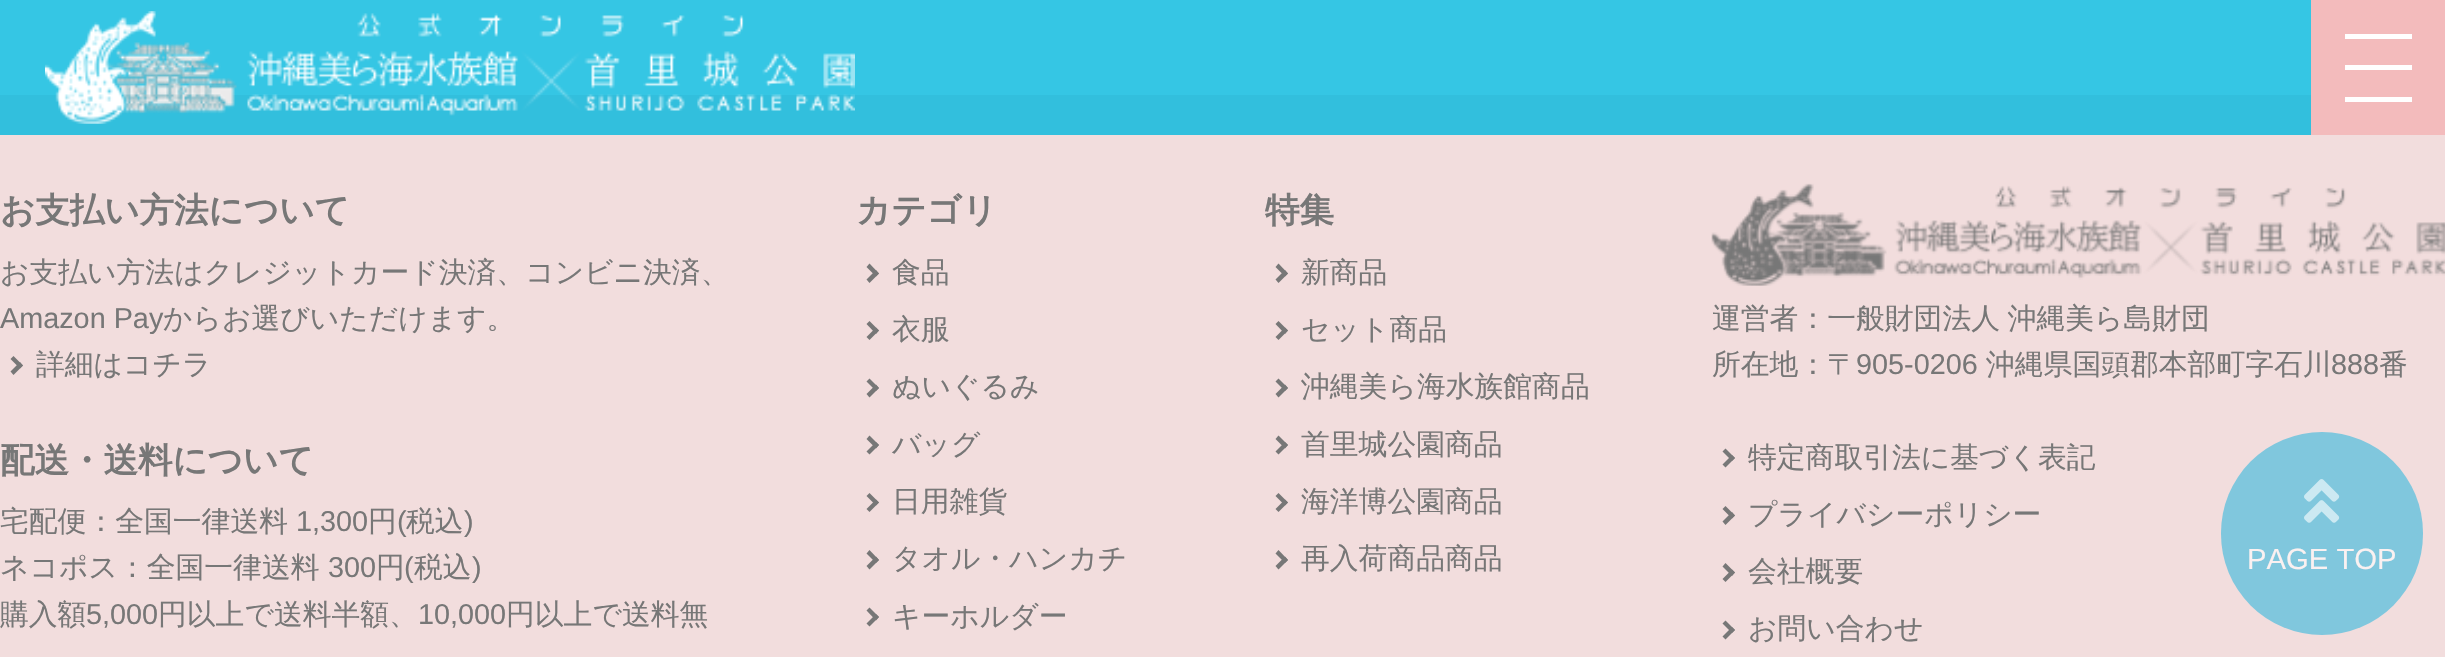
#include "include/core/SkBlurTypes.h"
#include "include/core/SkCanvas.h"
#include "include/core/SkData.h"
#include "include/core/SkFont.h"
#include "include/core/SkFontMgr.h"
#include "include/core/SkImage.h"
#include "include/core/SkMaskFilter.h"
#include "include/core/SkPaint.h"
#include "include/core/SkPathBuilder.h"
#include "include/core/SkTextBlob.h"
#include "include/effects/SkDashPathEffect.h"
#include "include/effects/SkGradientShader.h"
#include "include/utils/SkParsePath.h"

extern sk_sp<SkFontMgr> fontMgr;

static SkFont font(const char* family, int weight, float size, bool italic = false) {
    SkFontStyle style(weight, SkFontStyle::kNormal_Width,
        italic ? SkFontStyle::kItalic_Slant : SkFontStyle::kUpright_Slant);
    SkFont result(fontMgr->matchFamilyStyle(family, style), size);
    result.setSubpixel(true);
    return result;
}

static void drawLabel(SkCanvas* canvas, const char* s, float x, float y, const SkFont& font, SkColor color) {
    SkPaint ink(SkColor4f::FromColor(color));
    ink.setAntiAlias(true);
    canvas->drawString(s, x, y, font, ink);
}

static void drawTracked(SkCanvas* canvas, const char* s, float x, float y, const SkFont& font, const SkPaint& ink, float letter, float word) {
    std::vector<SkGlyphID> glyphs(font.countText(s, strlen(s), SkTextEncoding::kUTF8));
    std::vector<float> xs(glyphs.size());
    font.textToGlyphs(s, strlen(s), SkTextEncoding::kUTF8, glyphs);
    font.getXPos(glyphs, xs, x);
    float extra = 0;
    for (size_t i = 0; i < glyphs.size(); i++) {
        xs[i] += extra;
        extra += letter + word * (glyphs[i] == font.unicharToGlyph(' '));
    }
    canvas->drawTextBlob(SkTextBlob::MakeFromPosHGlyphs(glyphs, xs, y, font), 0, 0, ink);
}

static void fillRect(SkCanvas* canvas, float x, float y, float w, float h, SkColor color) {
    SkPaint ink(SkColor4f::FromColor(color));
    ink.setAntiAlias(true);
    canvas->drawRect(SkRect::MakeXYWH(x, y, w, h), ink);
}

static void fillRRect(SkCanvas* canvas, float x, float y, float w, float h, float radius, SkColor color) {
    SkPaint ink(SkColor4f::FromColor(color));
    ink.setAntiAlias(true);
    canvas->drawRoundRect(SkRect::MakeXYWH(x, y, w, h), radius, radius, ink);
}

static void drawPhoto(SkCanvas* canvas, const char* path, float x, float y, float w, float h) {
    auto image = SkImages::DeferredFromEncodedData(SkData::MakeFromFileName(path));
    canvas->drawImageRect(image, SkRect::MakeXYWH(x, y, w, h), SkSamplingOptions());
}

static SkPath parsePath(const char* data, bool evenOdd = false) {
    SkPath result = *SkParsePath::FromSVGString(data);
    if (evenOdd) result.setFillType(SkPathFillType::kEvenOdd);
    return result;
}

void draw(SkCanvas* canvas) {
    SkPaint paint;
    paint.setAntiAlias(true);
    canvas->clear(0xFF35C6E4);
    fillRect(canvas, 0, 95, 2311, 40, 0xFF32BFDD);
    drawPhoto(canvas, "assets/img1.png", 45, 11, 810, 113);
    fillRect(canvas, 2311, 0, 134, 135, 0xFFF3BBBC);
    fillRect(canvas, 2345, 34, 67, 5, 0xFFFFFFFF);
    fillRect(canvas, 2345, 65, 67, 5, 0xFFFFFFFF);
    fillRect(canvas, 2345, 97, 67, 5, 0xFFFFFFFF);
    fillRect(canvas, 0, 135, 2445, 522, 0xFFF2DDDD);
    SkFont font1 = font("WenQuanYi Zen Hei", 700, 34.5f);
    drawLabel(canvas, "お支払い方法について", 0, 222, font1, 0xFF777777);
    SkFont font2 = font("WenQuanYi Zen Hei", 500, 28.8f);
    drawLabel(canvas, "お支払い方法はクレジットカード決済、コンビニ決済、", 0, 282, font2, 0xFF777777);
    SkFont font3 = font("Liberation Sans", 400, 28.8f);
    drawLabel(canvas, "Amazon Pay", 0, 328, font3, 0xFF777777);
    drawLabel(canvas, "からお選びいただけます。", 163, 328, font2, 0xFF777777);
    paint.setColor(0xFF777777);
    canvas->drawPath(parsePath("M13.5 356L23 365.5L20 368.5L10.5 359Z"), paint);
    canvas->drawPath(parsePath("M20 362L23 365.5L13.5 375L10.5 371.5Z"), paint);
    drawLabel(canvas, "詳細はコチラ", 36, 374, font2, 0xFF777777);
    drawLabel(canvas, "配送・送料について", 0, 472, font1, 0xFF777777);
    drawLabel(canvas, "宅配便：全国一律送料", 0, 531, font2, 0xFF777777);
    drawLabel(canvas, "1,300", 296, 531, font3, 0xFF777777);
    drawLabel(canvas, "円", 368, 531, font2, 0xFF777777);
    drawLabel(canvas, "(", 397, 531, font3, 0xFF777777);
    drawLabel(canvas, "税込", 406, 531, font2, 0xFF777777);
    drawLabel(canvas, ")", 464, 531, font3, 0xFF777777);
    drawLabel(canvas, "ネコポス：全国一律送料", 0, 577, font2, 0xFF777777);
    drawLabel(canvas, "300", 328, 577, font3, 0xFF777777);
    drawLabel(canvas, "円", 376, 577, font2, 0xFF777777);
    drawLabel(canvas, "(", 404, 577, font3, 0xFF777777);
    drawLabel(canvas, "税込", 414, 577, font2, 0xFF777777);
    drawLabel(canvas, ")", 472, 577, font3, 0xFF777777);
    drawLabel(canvas, "購入額", 0, 624, font2, 0xFF777777);
    drawLabel(canvas, "5,000", 86, 624, font3, 0xFF777777);
    drawLabel(canvas, "円以上で送料半額、", 158, 624, font2, 0xFF777777);
    drawLabel(canvas, "10,000", 418, 624, font3, 0xFF777777);
    drawLabel(canvas, "円以上で送料無", 506, 624, font2, 0xFF777777);
    drawLabel(canvas, "カテゴリ", 856, 222, font1, 0xFF777777);
    canvas->drawPath(parsePath("M869.5 263.5L879 273.5L876 276.5L866.5 267Z"), paint);
    canvas->drawPath(parsePath("M876 270L879 273.5L869.5 283L866.5 279.5Z"), paint);
    drawLabel(canvas, "食品", 892, 282, font2, 0xFF777777);
    canvas->drawPath(parsePath("M869.5 321L879 330.5L876 334L866.5 324Z"), paint);
    canvas->drawPath(parsePath("M876 327.5L879 330.5L869.5 340L866.5 337Z"), paint);
    drawLabel(canvas, "衣服", 892, 339, font2, 0xFF777777);
    canvas->drawPath(parsePath("M869.5 378.5L879 388L876 391L866.5 381.5Z"), paint);
    canvas->drawPath(parsePath("M876 384.5L879 388L869.5 397.5L866.5 394Z"), paint);
    drawLabel(canvas, "ぬいぐるみ", 892, 396, font2, 0xFF777777);
    canvas->drawPath(parsePath("M869.5 435.5L879 445L876 448.5L866.5 439Z"), paint);
    canvas->drawPath(parsePath("M876 442L879 445L869.5 454.5L866.5 451.5Z"), paint);
    drawLabel(canvas, "バッグ", 892, 454, font2, 0xFF777777);
    canvas->drawPath(parsePath("M869.5 493L879 502.5L876 505.5L866.5 496Z"), paint);
    canvas->drawPath(parsePath("M876 499.5L879 502.5L869.5 512L866.5 509Z"), paint);
    drawLabel(canvas, "日用雑貨", 892, 511, font2, 0xFF777777);
    canvas->drawPath(parsePath("M869.5 550L879 560L876 563L866.5 553.5Z"), paint);
    canvas->drawPath(parsePath("M876 556.5L879 560L869.5 569.5L866.5 566Z"), paint);
    drawLabel(canvas, "タオル・ハンカチ", 892, 568, font2, 0xFF777777);
    canvas->drawPath(parsePath("M869.5 607.5L879 617L876 620.5L866.5 610.5Z"), paint);
    canvas->drawPath(parsePath("M876 614L879 617L869.5 626.5L866.5 623.5Z"), paint);
    drawLabel(canvas, "キーホルダー", 892, 626, font2, 0xFF777777);
    drawLabel(canvas, "特集", 1265, 222, font1, 0xFF777777);
    canvas->drawPath(parsePath("M1278.5 263.5L1288 273.5L1285 276.5L1275.5 267Z"), paint);
    canvas->drawPath(parsePath("M1285 270L1288 273.5L1278.5 283L1275.5 279.5Z"), paint);
    drawLabel(canvas, "新商品", 1301, 282, font2, 0xFF777777);
    canvas->drawPath(parsePath("M1278.5 321L1288 330.5L1285 334L1275.5 324Z"), paint);
    canvas->drawPath(parsePath("M1285 327.5L1288 330.5L1278.5 340L1275.5 337Z"), paint);
    drawLabel(canvas, "セット商品", 1301, 339, font2, 0xFF777777);
    canvas->drawPath(parsePath("M1278.5 378.5L1288 388L1285 391L1275.5 381.5Z"), paint);
    canvas->drawPath(parsePath("M1285 384.5L1288 388L1278.5 397.5L1275.5 394Z"), paint);
    drawLabel(canvas, "沖縄美ら海水族館商品", 1301, 396, font2, 0xFF777777);
    canvas->drawPath(parsePath("M1278.5 435.5L1288 445L1285 448.5L1275.5 439Z"), paint);
    canvas->drawPath(parsePath("M1285 442L1288 445L1278.5 454.5L1275.5 451.5Z"), paint);
    drawLabel(canvas, "首里城公園商品", 1301, 454, font2, 0xFF777777);
    canvas->drawPath(parsePath("M1278.5 493L1288 502.5L1285 505.5L1275.5 496Z"), paint);
    canvas->drawPath(parsePath("M1285 499.5L1288 502.5L1278.5 512L1275.5 509Z"), paint);
    drawLabel(canvas, "海洋博公園商品", 1301, 511, font2, 0xFF777777);
    canvas->drawPath(parsePath("M1278.5 550L1288 560L1285 563L1275.5 553.5Z"), paint);
    canvas->drawPath(parsePath("M1285 556.5L1288 560L1278.5 569.5L1275.5 566Z"), paint);
    drawLabel(canvas, "再入荷商品商品", 1301, 568, font2, 0xFF777777);
    drawPhoto(canvas, "assets/img2.png", 1711, 183, 734, 103);
    drawTracked(canvas, "運営者：一般財団法人 沖縄美ら島財団", 1712, 328, font2, paint, 0, -1);
    drawLabel(canvas, "所在地：〒", 1712, 374, font2, 0xFF777777);
    drawLabel(canvas, "905-0206", 1856, 374, font3, 0xFF777777);
    drawLabel(canvas, "沖縄県国頭郡本部町字石川", 1986, 374, font2, 0xFF777777);
    drawLabel(canvas, "888", 2331, 374, font3, 0xFF777777);
    drawLabel(canvas, "番", 2379, 374, font2, 0xFF777777);
    canvas->drawPath(parsePath("M1725.5 448.5L1735 458L1732 461L1722.5 451.5Z"), paint);
    canvas->drawPath(parsePath("M1732 455L1735 458L1725.5 467.5L1722.5 464.5Z"), paint);
    drawLabel(canvas, "特定商取引法に基づく表記", 1748, 467, font2, 0xFF777777);
    canvas->drawPath(parsePath("M1725.5 506L1735 515.5L1732 518.5L1722.5 509Z"), paint);
    canvas->drawPath(parsePath("M1732 512L1735 515.5L1725.5 525L1722.5 521.5Z"), paint);
    drawLabel(canvas, "プライバシーポリシー", 1748, 524, font2, 0xFF777777);
    canvas->drawPath(parsePath("M1725.5 563L1735 572.5L1732 576L1722.5 566.5Z"), paint);
    canvas->drawPath(parsePath("M1732 569.5L1735 572.5L1725.5 582L1722.5 579Z"), paint);
    drawLabel(canvas, "会社概要", 1748, 581, font2, 0xFF777777);
    canvas->drawPath(parsePath("M1725.5 620.5L1735 630L1732 633L1722.5 623.5Z"), paint);
    canvas->drawPath(parsePath("M1732 627L1735 630L1725.5 639.5L1722.5 636.5Z"), paint);
    drawLabel(canvas, "お問い合わせ", 1748, 638, font2, 0xFF777777);
    fillRRect(canvas, 2221, 432, 202, 203, 101, 0xFF80C7DD);
    drawPhoto(canvas, "assets/img3.png", 2304, 479, 36, 44);
    SkFont font4 = font("Liberation Sans", 400, 29.25f);
    drawLabel(canvas, "PAGE TOP", 2247, 569, font4, 0xFFFAF1F1);
}
